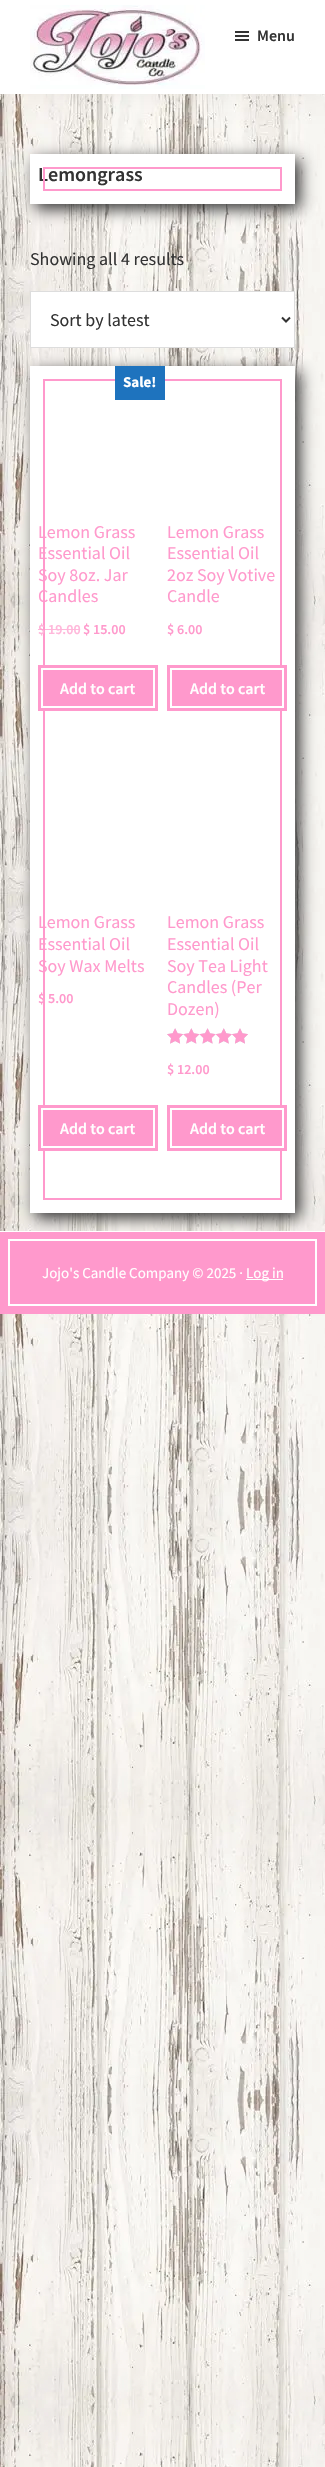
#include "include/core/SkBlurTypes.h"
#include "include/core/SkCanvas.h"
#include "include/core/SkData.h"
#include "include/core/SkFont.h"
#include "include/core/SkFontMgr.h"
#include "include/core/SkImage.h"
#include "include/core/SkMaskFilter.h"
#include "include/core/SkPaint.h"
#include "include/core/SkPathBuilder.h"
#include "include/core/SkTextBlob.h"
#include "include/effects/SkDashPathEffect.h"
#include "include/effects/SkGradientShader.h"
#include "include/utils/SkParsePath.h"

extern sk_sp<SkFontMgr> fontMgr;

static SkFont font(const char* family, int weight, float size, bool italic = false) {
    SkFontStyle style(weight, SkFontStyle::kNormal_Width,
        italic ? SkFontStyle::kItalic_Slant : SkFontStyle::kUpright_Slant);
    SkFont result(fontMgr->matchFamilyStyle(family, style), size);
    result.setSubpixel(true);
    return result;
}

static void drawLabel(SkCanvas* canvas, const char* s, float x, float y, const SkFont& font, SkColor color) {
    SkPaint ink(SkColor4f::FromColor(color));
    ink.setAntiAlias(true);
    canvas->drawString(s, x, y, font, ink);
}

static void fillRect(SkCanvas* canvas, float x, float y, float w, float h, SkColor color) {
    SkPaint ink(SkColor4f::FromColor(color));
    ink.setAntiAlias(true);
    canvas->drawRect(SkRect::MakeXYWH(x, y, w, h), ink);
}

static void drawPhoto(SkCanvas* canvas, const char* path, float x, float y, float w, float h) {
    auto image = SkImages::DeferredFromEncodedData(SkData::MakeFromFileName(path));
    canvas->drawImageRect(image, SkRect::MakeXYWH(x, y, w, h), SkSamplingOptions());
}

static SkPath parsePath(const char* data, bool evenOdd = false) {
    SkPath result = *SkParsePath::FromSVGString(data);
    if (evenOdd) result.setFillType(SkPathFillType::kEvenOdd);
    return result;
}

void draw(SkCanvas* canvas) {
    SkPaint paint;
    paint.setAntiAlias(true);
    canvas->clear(0xFFFFFFFF);
    drawPhoto(canvas, "assets/img1.png", 0, 94, 325, 2373);
    paint.setColor(0x0D000000);
    paint.setMaskFilter(SkMaskFilter::MakeBlur(kNormal_SkBlurStyle, 10));
    canvas->drawRect(SkRect::MakeXYWH(0, 0, 325, 94), paint);
    paint.setMaskFilter(nullptr);
    fillRect(canvas, 0, 0, 325, 94, 0xFFFFFFFF);
    drawPhoto(canvas, "assets/img2.png", 30, 5, 175, 84);
    drawPhoto(canvas, "assets/img3.png", 235, 31, 14, 10);
    SkFont font1 = font("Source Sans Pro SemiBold", 600, 16);
    drawLabel(canvas, "Menu", 257, 41, font1, 0xFF333333);
    paint.setColor(0xFF333333);
    paint.setMaskFilter(SkMaskFilter::MakeBlur(kNormal_SkBlurStyle, 7.5f));
    canvas->drawRect(SkRect::MakeXYWH(35, 159, 265, 50), paint);
    paint.setMaskFilter(nullptr);
    fillRect(canvas, 30, 154, 265, 50, 0xFFFFFFFF);
    SkFont font2 = font("Source Sans Pro SemiBold", 600, 20);
    drawLabel(canvas, "Lemongrass", 38, 181, font2, 0xFF333333);
    paint.setStroke(true);
    paint.setStrokeWidth(2);
    paint.setColor(0xFFFF99CC);
    canvas->drawRect(SkRect::MakeXYWH(44, 168, 237, 22), paint);
    SkFont font3 = font("Source Sans Pro", 400, 18);
    drawLabel(canvas, "Showing all 4 results", 30, 265, font3, 0xFF333333);
    paint.setStroke(false);
    paint.setColor(0xFF333333);
    paint.setMaskFilter(SkMaskFilter::MakeBlur(kNormal_SkBlurStyle, 7.5f));
    canvas->drawRect(SkRect::MakeXYWH(35, 371, 265, 847), paint);
    paint.setMaskFilter(nullptr);
    paint.setColor(0xFFFFFFFF);
    canvas->drawRect(SkRect::MakeXYWH(30.5f, 291.5f, 264, 56), paint);
    paint.setStroke(true);
    paint.setStrokeWidth(1);
    paint.setColor(0xFFDDDDDD);
    canvas->drawRect(SkRect::MakeXYWH(30.5f, 291.5f, 264, 56), paint);
    paint.setStrokeWidth(2);
    paint.setColor(0xFF333333);
    canvas->drawPath(parsePath("M282 317.5L286 321.5L290 317.5"), paint);
    drawLabel(canvas, "Sort by latest", 50, 326, font3, 0xFF333333);
    fillRect(canvas, 30, 366, 265, 847, 0xFFFFFFFF);
    paint.setColor(0xFFFF99CC);
    canvas->drawRect(SkRect::MakeXYWH(44, 380, 237, 819), paint);
    fillRect(canvas, 115, 366, 50, 34, 0xFF1E73BE);
    SkFont font4 = font("Source Sans Pro", 700, 15);
    drawLabel(canvas, "Sale!", 123, 387, font4, 0xFFFFFFFF);
    drawLabel(canvas, "Lemon Grass", 38, 538, font3, 0xFFFF99CC);
    drawLabel(canvas, "Essential Oil", 38, 559, font3, 0xFFFF99CC);
    drawLabel(canvas, "Soy 8oz. Jar", 38, 581, font3, 0xFFFF99CC);
    drawLabel(canvas, "Candles", 38, 602, font3, 0xFFFF99CC);
    SkFont font5 = font("Source Sans Pro SemiBold", 600, 14);
    drawLabel(canvas, "$", 38, 634, font5, 0xFFFFB2D8);
    fillRect(canvas, 38, 629, 7, 1, 0xB3FF99CC);
    fillRect(canvas, 45, 629, 35, 1, 0xFFFFB8DB);
    drawLabel(canvas, "19.00", 48, 634, font5, 0xFFFFB8DB);
    drawLabel(canvas, "$ 15.00", 83, 634, font5, 0xFFFF99CC);
    fillRect(canvas, 38, 665, 120, 46, 0xFFFF99CC);
    paint.setColor(0xFFFFFFFF);
    canvas->drawRect(SkRect::MakeXYWH(42, 669, 112, 38), paint);
    drawLabel(canvas, "Add to cart", 60, 694, font1, 0xFFFFFFFF);
    drawLabel(canvas, "Lemon Grass", 167, 538, font3, 0xFFFF99CC);
    drawLabel(canvas, "Essential Oil", 167, 559, font3, 0xFFFF99CC);
    drawLabel(canvas, "2oz Soy Votive", 167, 581, font3, 0xFFFF99CC);
    drawLabel(canvas, "Candle", 167, 602, font3, 0xFFFF99CC);
    drawLabel(canvas, "$ 6.00", 167, 634, font5, 0xFFFF99CC);
    fillRect(canvas, 167, 665, 120, 46, 0xFFFF99CC);
    canvas->drawRect(SkRect::MakeXYWH(171, 669, 112, 38), paint);
    drawLabel(canvas, "Add to cart", 190, 694, font1, 0xFFFFFFFF);
    drawLabel(canvas, "Lemon Grass", 38, 928, font3, 0xFFFF99CC);
    drawLabel(canvas, "Essential Oil", 38, 950, font3, 0xFFFF99CC);
    drawLabel(canvas, "Soy Wax Melts", 38, 972, font3, 0xFFFF99CC);
    drawLabel(canvas, "$ 5.00", 38, 1003, font5, 0xFFFF99CC);
    fillRect(canvas, 38, 1105, 120, 46, 0xFFFF99CC);
    canvas->drawRect(SkRect::MakeXYWH(42, 1109, 112, 38), paint);
    drawLabel(canvas, "Add to cart", 60, 1134, font1, 0xFFFFFFFF);
    drawLabel(canvas, "Lemon Grass", 167, 928, font3, 0xFFFF99CC);
    drawLabel(canvas, "Essential Oil", 167, 950, font3, 0xFFFF99CC);
    drawLabel(canvas, "Soy Tea Light", 167, 972, font3, 0xFFFF99CC);
    drawLabel(canvas, "Candles (Per", 167, 993, font3, 0xFFFF99CC);
    drawLabel(canvas, "Dozen)", 167, 1015, font3, 0xFFFF99CC);
    drawPhoto(canvas, "assets/img4.png", 167, 1028, 81, 16);
    drawPhoto(canvas, "assets/img5.png", 167, 1028, 81, 16);
    drawLabel(canvas, "$ 12.00", 167, 1074, font5, 0xFFFF99CC);
    fillRect(canvas, 167, 1105, 120, 46, 0xFFFF99CC);
    canvas->drawRect(SkRect::MakeXYWH(171, 1109, 112, 38), paint);
    drawLabel(canvas, "Add to cart", 190, 1134, font1, 0xFFFFFFFF);
    fillRect(canvas, 0, 1232, 325, 82, 0xFFFF99CC);
    fillRect(canvas, 0, 1231, 325, 1, 0xFFFFFFFF);
    fillRect(canvas, 246, 1279, 37, 1, 0xFFFFFFFF);
    canvas->drawRect(SkRect::MakeXYWH(9, 1240, 307, 65), paint);
    SkFont font6 = font("Source Sans Pro", 400, 15);
    drawLabel(canvas, "Jojo's Candle Company © 2025 ·", 42, 1278, font6, 0xFFFFFFFF);
    drawLabel(canvas, "Log in", 246, 1278, font6, 0xFFFFFFFF);
}
